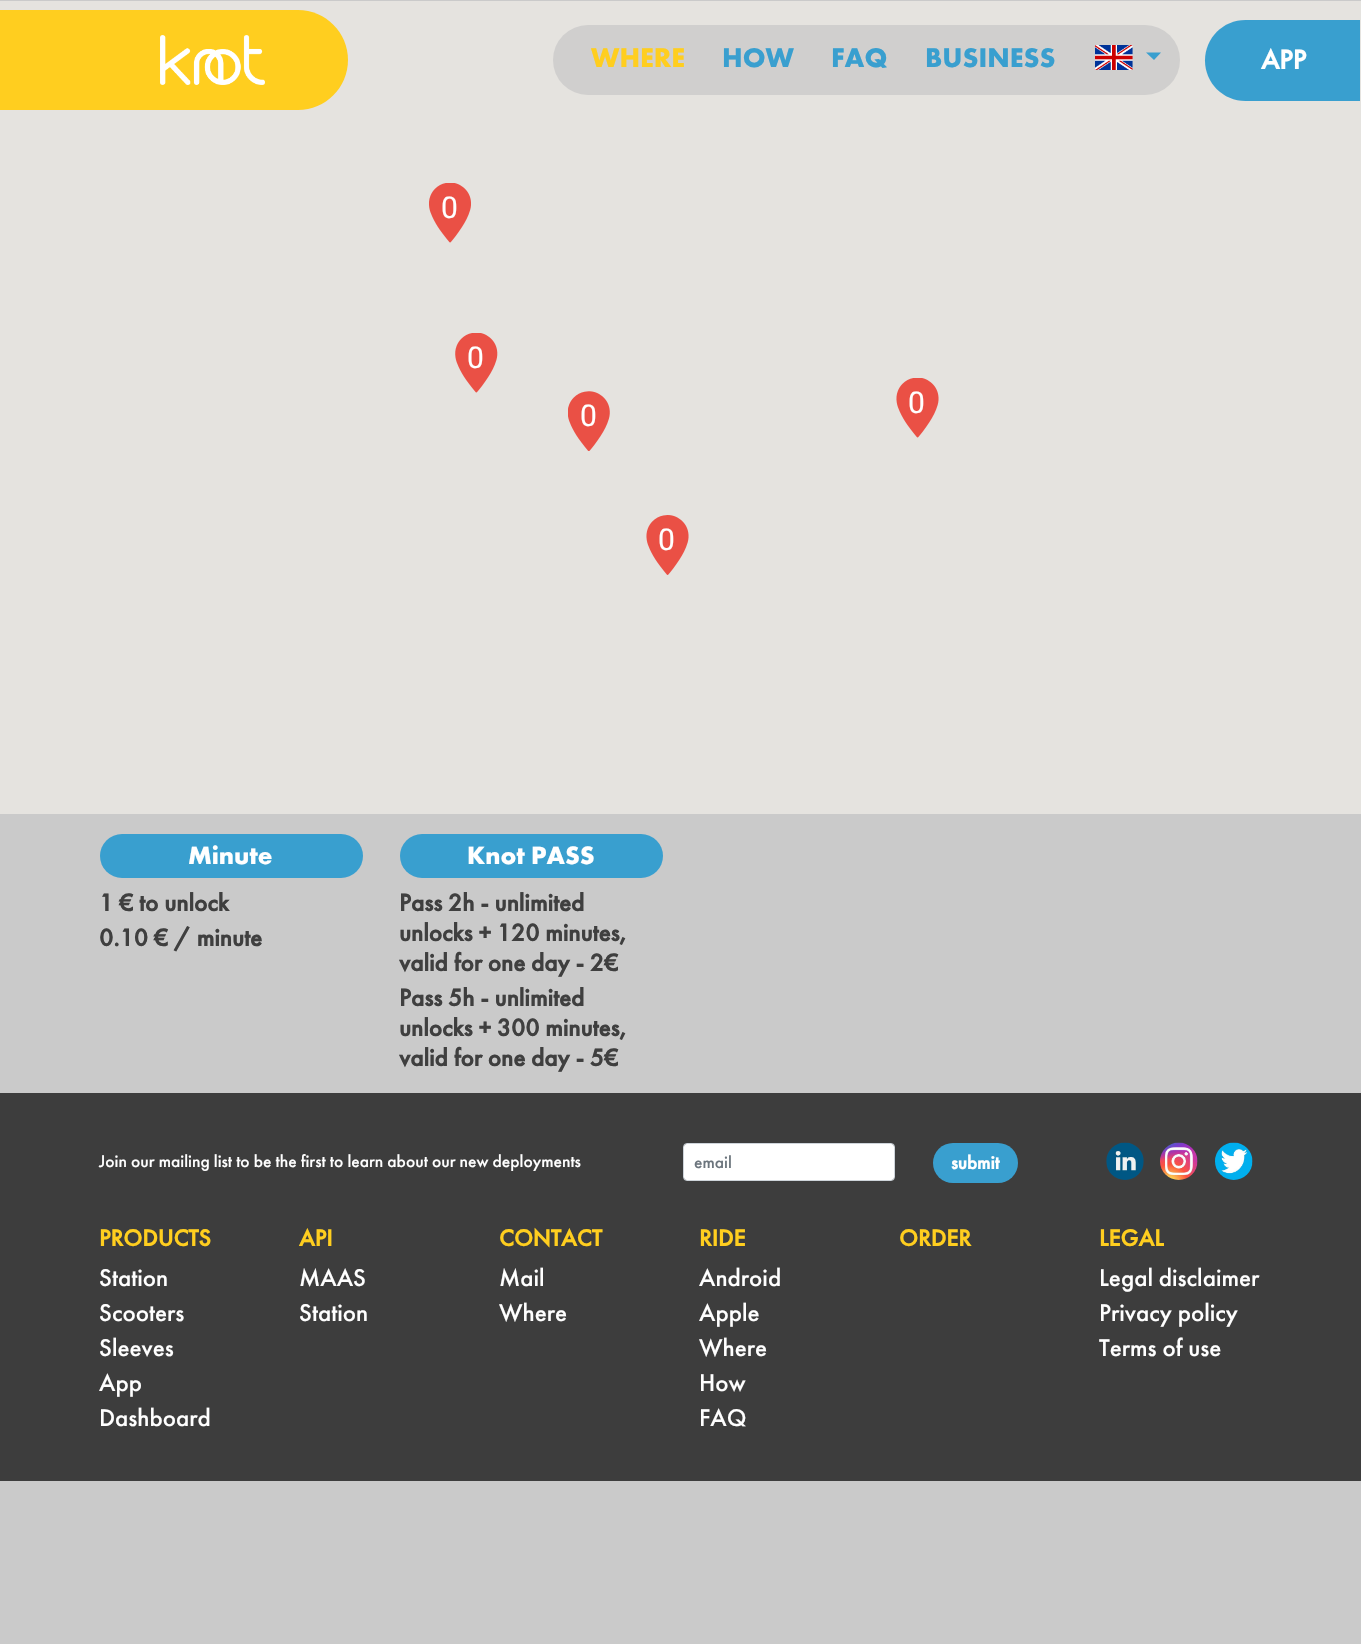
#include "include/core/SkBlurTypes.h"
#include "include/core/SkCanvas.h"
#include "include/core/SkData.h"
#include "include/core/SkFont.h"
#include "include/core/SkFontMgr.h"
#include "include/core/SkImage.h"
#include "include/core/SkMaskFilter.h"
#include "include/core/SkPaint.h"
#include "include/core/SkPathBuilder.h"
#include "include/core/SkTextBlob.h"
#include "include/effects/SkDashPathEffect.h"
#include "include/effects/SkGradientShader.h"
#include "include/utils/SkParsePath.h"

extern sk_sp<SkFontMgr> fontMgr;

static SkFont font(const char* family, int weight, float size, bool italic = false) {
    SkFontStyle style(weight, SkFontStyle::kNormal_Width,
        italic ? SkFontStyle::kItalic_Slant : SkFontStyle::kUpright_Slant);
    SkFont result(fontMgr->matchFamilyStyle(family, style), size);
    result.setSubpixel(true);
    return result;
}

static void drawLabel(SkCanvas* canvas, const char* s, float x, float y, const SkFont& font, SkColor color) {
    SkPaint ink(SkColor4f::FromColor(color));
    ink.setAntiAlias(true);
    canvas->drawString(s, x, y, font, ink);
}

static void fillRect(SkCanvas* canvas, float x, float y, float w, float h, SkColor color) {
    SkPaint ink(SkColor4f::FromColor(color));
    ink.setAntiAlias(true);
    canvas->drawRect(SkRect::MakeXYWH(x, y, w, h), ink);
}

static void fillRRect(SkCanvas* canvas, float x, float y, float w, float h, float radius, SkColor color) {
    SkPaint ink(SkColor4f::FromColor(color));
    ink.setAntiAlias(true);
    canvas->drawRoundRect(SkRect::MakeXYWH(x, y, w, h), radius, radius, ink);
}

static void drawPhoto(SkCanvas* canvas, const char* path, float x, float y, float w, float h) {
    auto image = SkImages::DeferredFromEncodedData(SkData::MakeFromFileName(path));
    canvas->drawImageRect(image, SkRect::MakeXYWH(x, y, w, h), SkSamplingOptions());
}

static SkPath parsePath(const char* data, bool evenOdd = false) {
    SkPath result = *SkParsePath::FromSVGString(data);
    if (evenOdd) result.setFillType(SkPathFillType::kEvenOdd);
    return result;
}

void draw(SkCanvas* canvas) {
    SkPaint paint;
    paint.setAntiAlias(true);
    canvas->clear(0xFFCACACA);
    fillRect(canvas, 0, 1, 1361, 813, 0xFFE5E3DF);
    paint.setColor(0xFFFFCE1F);
    canvas->drawPath(parsePath("M-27 10H298C325.5 10 348 32.5 348 60C348 87.5 325.5 110 298 110H-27Z"), paint);
    drawPhoto(canvas, "assets/img1.png", 160, 35, 105, 50);
    fillRRect(canvas, 553, 25, 627, 70, 35, 0xFFD0CFCE);
    SkFont font1 = font("Futura PT", 700, 28);
    drawLabel(canvas, "WHERE", 591, 67, font1, 0xFFFFCE1F);
    drawLabel(canvas, "HOW", 722, 67, font1, 0xFF399FCF);
    drawLabel(canvas, "FAQ", 831, 67, font1, 0xFF399FCF);
    drawLabel(canvas, "BUSINESS", 925, 67, font1, 0xFF399FCF);
    drawPhoto(canvas, "assets/img2.png", 1095, 45, 38, 25);
    paint.setColor(0xFF399FCF);
    canvas->drawPath(parsePath("M1146 52.5H1161L1154 60Z"), paint);
    canvas->drawPath(parsePath("M1245.5 20H1360V101H1245.5C1223 101 1205 83 1205 60.5C1205 38 1223 20 1245.5 20Z"), paint);
    SkFont font2 = font("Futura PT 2", 700, 28);
    drawLabel(canvas, "APP", 1261, 69, font2, 0xFFFFFFFF);
    drawPhoto(canvas, "assets/img3.png", 429, 183, 42, 60);
    SkFont font3 = font("Roboto", 400, 30);
    drawLabel(canvas, "0", 441, 218, font3, 0xFFFFFFFF);
    drawPhoto(canvas, "assets/img4.png", 455, 333, 43, 60);
    drawLabel(canvas, "0", 467, 368, font3, 0xFFFFFFFF);
    drawPhoto(canvas, "assets/img5.png", 568, 391, 42, 60);
    drawPhoto(canvas, "assets/img6.png", 896, 378, 43, 60);
    drawLabel(canvas, "0", 580, 426, font3, 0xFFFFFFFF);
    drawLabel(canvas, "0", 908, 413, font3, 0xFFFFFFFF);
    drawPhoto(canvas, "assets/img7.png", 646, 515, 43, 60);
    drawLabel(canvas, "0", 658, 550, font3, 0xFFFFFFFF);
    fillRRect(canvas, 100, 834, 263, 44, 22, 0xFF399FCF);
    SkFont font4 = font("Futura PT", 700, 26);
    drawLabel(canvas, "Minute", 188, 864, font4, 0xFFFFFFFF);
    SkFont font5 = font("Futura PT 2", 700, 25);
    drawLabel(canvas, "1 € to unlock", 99, 911, font5, 0xFF3F3F3F);
    drawLabel(canvas, "0.10 € / minute", 99, 946, font5, 0xFF3F3F3F);
    fillRRect(canvas, 400, 834, 263, 44, 22, 0xFF399FCF);
    drawLabel(canvas, "Knot PASS", 467, 864, font4, 0xFFFFFFFF);
    drawLabel(canvas, "Pass 2h - unlimited", 399, 911, font5, 0xFF3F3F3F);
    drawLabel(canvas, "unlocks + 120 minutes,", 399, 941, font5, 0xFF3F3F3F);
    drawLabel(canvas, "valid for one day - 2€", 399, 971, font5, 0xFF3F3F3F);
    drawLabel(canvas, "Pass 5h - unlimited", 399, 1006, font5, 0xFF3F3F3F);
    drawLabel(canvas, "unlocks + 300 minutes,", 399, 1036, font5, 0xFF3F3F3F);
    drawLabel(canvas, "valid for one day - 5€", 399, 1066, font5, 0xFF3F3F3F);
    fillRect(canvas, 0, 1093, 1361, 388, 0xFF3D3D3D);
    SkFont font6 = font("Futura PT", 500, 17.5f);
    drawLabel(canvas, "Join our mailing list to be the first to learn about our new deployments", 99, 1167, font6, 0xFFFFFFFF);
    fillRRect(canvas, 684, 1144, 210, 36, 2.5f, 0xFFFFFFFF);
    paint.setStroke(true);
    paint.setStrokeWidth(1);
    paint.setColor(0xFFCED4DA);
    canvas->drawRoundRect(SkRect::MakeXYWH(683.5f, 1143.5f, 211, 37), 3.5f, 3.5f, paint);
    drawLabel(canvas, "email", 694, 1168, font6, 0xFF6C757D);
    fillRRect(canvas, 933, 1143, 85, 40, 20, 0xFF399FCF);
    SkFont font7 = font("Futura PT 2", 700, 19);
    drawLabel(canvas, "submit", 951, 1169, font7, 0xFFFFFFFF);
    drawPhoto(canvas, "assets/img8.png", 1106, 1142, 38, 38);
    drawPhoto(canvas, "assets/img9.png", 1160, 1142, 38, 38);
    drawPhoto(canvas, "assets/img10.png", 1215, 1142, 38, 38);
    SkFont font8 = font("Futura PT 2", 700, 24);
    drawLabel(canvas, "PRODUCTS", 99, 1246, font8, 0xFFFFCE1F);
    SkFont font9 = font("Futura PT", 500, 25);
    drawLabel(canvas, "Station", 99, 1286, font9, 0xFFFFFFFF);
    drawLabel(canvas, "Scooters", 99, 1321, font9, 0xFFFFFFFF);
    drawLabel(canvas, "Sleeves", 99, 1356, font9, 0xFFFFFFFF);
    drawLabel(canvas, "App", 99, 1391, font9, 0xFFFFFFFF);
    drawLabel(canvas, "Dashboard", 99, 1426, font9, 0xFFFFFFFF);
    drawLabel(canvas, "API", 299, 1246, font8, 0xFFFFCE1F);
    drawLabel(canvas, "MAAS", 299, 1286, font9, 0xFFFFFFFF);
    drawLabel(canvas, "Station", 299, 1321, font9, 0xFFFFFFFF);
    drawLabel(canvas, "CONTACT", 499, 1246, font8, 0xFFFFCE1F);
    drawLabel(canvas, "Mail", 499, 1286, font9, 0xFFFFFFFF);
    drawLabel(canvas, "Where", 499, 1321, font9, 0xFFFFFFFF);
    drawLabel(canvas, "RIDE", 699, 1246, font8, 0xFFFFCE1F);
    drawLabel(canvas, "Android", 699, 1286, font9, 0xFFFFFFFF);
    drawLabel(canvas, "Apple", 699, 1321, font9, 0xFFFFFFFF);
    drawLabel(canvas, "Where", 699, 1356, font9, 0xFFFFFFFF);
    drawLabel(canvas, "How", 699, 1391, font9, 0xFFFFFFFF);
    drawLabel(canvas, "FAQ", 699, 1426, font9, 0xFFFFFFFF);
    drawLabel(canvas, "ORDER", 899, 1246, font8, 0xFFFFCE1F);
    drawLabel(canvas, "LEGAL", 1099, 1246, font8, 0xFFFFCE1F);
    drawLabel(canvas, "Legal disclaimer", 1099, 1286, font9, 0xFFFFFFFF);
    drawLabel(canvas, "Privacy policy", 1099, 1321, font9, 0xFFFFFFFF);
    drawLabel(canvas, "Terms of use", 1099, 1356, font9, 0xFFFFFFFF);
}
